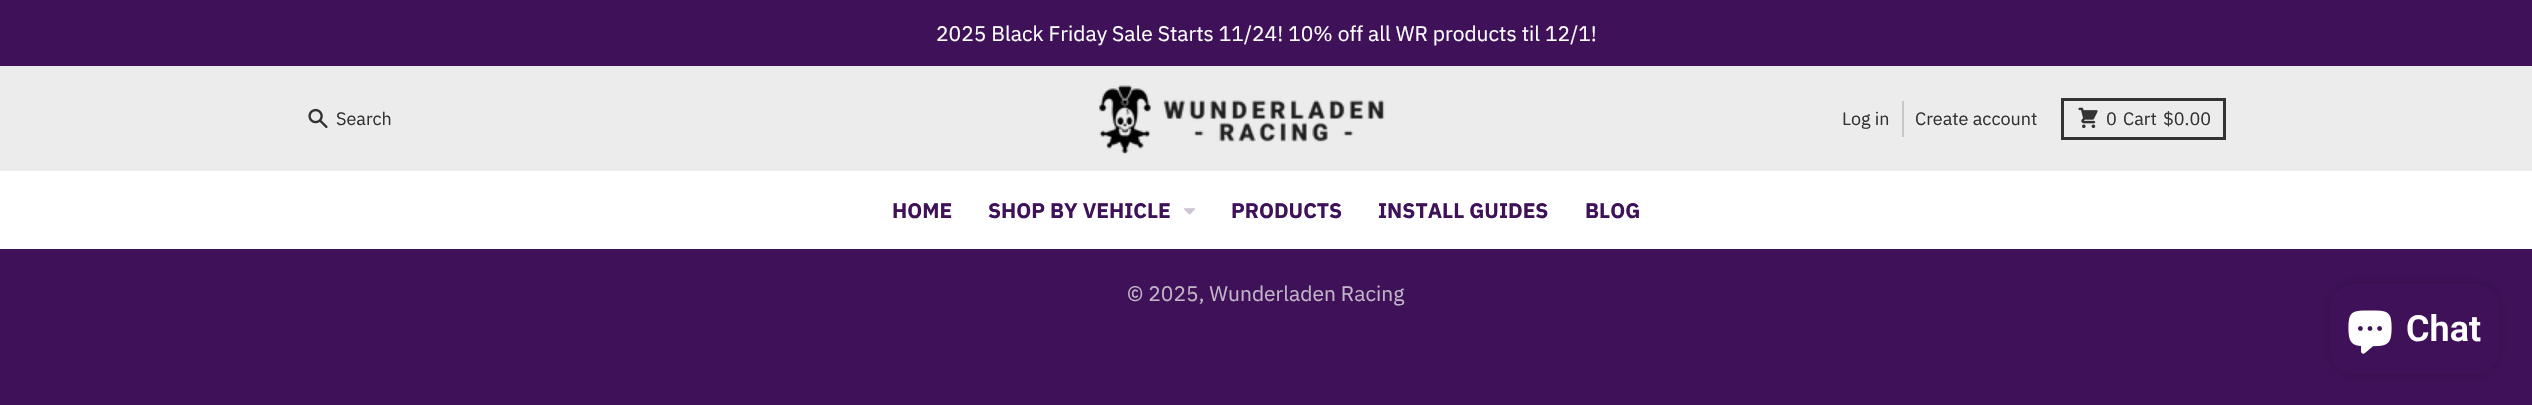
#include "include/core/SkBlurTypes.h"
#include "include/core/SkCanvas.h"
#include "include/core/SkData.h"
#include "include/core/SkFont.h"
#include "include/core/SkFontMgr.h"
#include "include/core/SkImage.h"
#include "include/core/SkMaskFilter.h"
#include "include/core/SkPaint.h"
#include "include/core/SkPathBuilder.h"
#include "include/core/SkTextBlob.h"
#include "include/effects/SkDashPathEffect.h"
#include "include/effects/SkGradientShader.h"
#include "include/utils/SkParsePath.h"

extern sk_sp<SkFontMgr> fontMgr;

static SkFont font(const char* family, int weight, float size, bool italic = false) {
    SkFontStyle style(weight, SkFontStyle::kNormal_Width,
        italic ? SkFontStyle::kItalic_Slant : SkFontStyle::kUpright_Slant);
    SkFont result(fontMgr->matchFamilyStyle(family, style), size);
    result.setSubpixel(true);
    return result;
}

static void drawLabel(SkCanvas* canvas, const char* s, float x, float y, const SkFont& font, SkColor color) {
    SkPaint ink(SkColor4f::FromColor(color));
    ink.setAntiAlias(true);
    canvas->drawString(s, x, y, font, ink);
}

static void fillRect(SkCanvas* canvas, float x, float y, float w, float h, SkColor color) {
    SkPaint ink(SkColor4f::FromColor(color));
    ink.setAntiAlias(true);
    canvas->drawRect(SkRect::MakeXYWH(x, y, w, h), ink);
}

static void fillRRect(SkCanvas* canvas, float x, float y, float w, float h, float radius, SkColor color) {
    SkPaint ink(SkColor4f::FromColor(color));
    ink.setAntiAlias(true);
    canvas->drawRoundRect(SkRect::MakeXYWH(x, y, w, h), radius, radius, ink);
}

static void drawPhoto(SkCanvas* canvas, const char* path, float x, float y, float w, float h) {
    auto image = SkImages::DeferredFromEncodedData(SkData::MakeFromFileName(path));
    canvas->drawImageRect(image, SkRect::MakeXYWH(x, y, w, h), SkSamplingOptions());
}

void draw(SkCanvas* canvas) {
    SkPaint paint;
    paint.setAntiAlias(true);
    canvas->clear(0xFF3E1158);
    SkFont font1 = font("IBM Plex Sans", 400, 21);
    drawLabel(canvas, "2025 Black Friday Sale Starts 11/24! 10% off all WR products til 12/1!", 936, 41, font1, 0xFFFFFFFF);
    fillRect(canvas, 0, 66, 2532, 105, 0xFFECECEC);
    drawPhoto(canvas, "assets/img1.png", 308, 108, 20, 21);
    SkFont font2 = font("IBM Plex Sans", 400, 18);
    drawLabel(canvas, "Search", 336, 125, font2, 0xFF333333);
    drawPhoto(canvas, "assets/img2.png", 1099, 85, 286, 69);
    drawLabel(canvas, "Log in", 1842, 125, font2, 0xFF333333);
    fillRect(canvas, 1902, 101, 2, 36, 0xFFC7C7C7);
    drawLabel(canvas, "Create account", 1915, 125, font2, 0xFF333333);
    paint.setStroke(true);
    paint.setStrokeWidth(3);
    paint.setColor(0xFF333333);
    canvas->drawRect(SkRect::MakeXYWH(2062.5f, 99.5f, 162, 39), paint);
    drawPhoto(canvas, "assets/img3.png", 2078, 107, 20, 22);
    drawLabel(canvas, "0", 2106, 125, font2, 0xFF333333);
    drawLabel(canvas, "Cart", 2123, 125, font2, 0xFF333333);
    drawLabel(canvas, "$0.00", 2163, 125, font2, 0xFF333333);
    fillRect(canvas, 0, 171, 2532, 78, 0xFFFFFFFF);
    SkFont font3 = font("IBM Plex Sans", 700, 21);
    drawLabel(canvas, "HOME", 892, 218, font3, 0xFF3E1158);
    drawLabel(canvas, "SHOP BY VEHICLE", 988, 218, font3, 0xFF3E1158);
    drawPhoto(canvas, "assets/img4.png", 1184, 208, 11, 7);
    drawLabel(canvas, "PRODUCTS", 1231, 218, font3, 0xFF3E1158);
    drawLabel(canvas, "INSTALL GUIDES", 1378, 218, font3, 0xFF3E1158);
    drawLabel(canvas, "BLOG", 1585, 218, font3, 0xFF3E1158);
    drawLabel(canvas, "© 2025, Wunderladen Racing", 1127, 301, font1, 0xFFC1B5C7);
    paint.setStroke(false);
    paint.setColor(0x26000000);
    paint.setMaskFilter(SkMaskFilter::MakeBlur(kNormal_SkBlurStyle, 4));
    canvas->drawRoundRect(SkRect::MakeXYWH(2330, 284, 169, 90), 24, 24, paint);
    paint.setMaskFilter(nullptr);
    fillRRect(canvas, 2330, 284, 169, 90, 24, 0xFF3E1158);
    drawPhoto(canvas, "assets/img5.png", 2348, 310, 44, 44);
    SkFont font4 = font("Roboto", 600, 36);
    drawLabel(canvas, "Chat", 2406, 341, font4, 0xFFFFFFFF);
}
